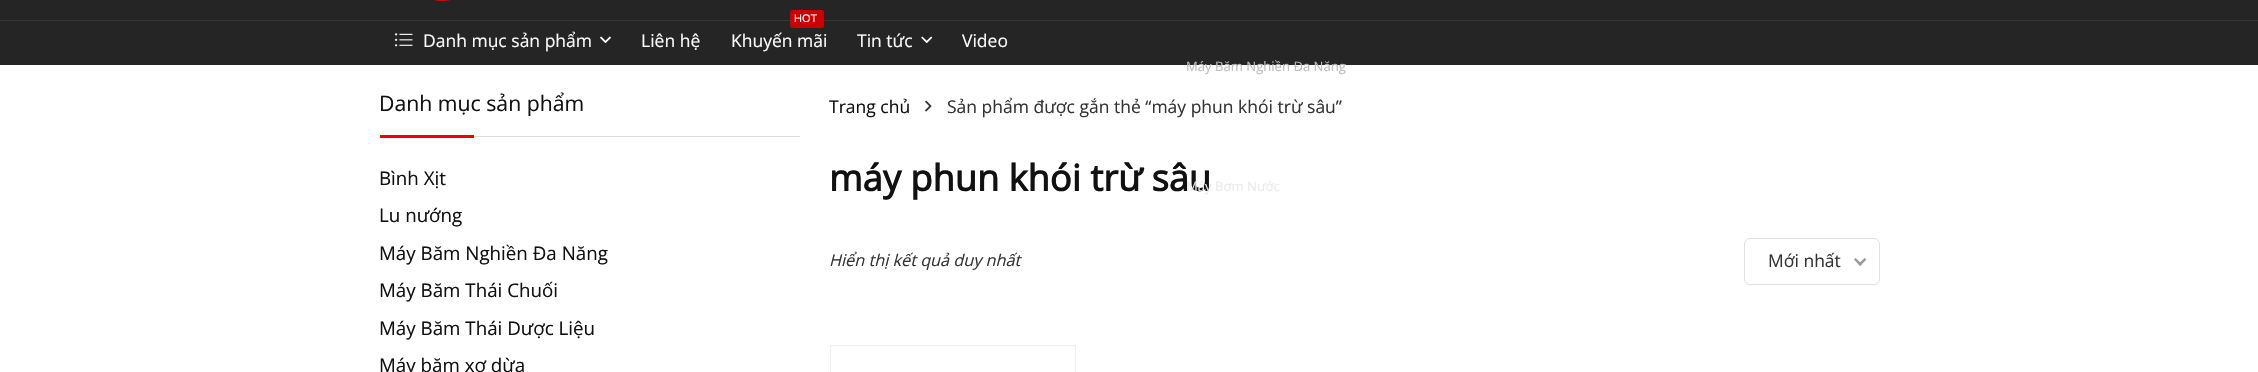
#include "include/core/SkBlurTypes.h"
#include "include/core/SkCanvas.h"
#include "include/core/SkData.h"
#include "include/core/SkFont.h"
#include "include/core/SkFontMgr.h"
#include "include/core/SkImage.h"
#include "include/core/SkMaskFilter.h"
#include "include/core/SkPaint.h"
#include "include/core/SkPathBuilder.h"
#include "include/core/SkTextBlob.h"
#include "include/effects/SkDashPathEffect.h"
#include "include/effects/SkGradientShader.h"
#include "include/utils/SkParsePath.h"

extern sk_sp<SkFontMgr> fontMgr;

static SkFont font(const char* family, int weight, float size, bool italic = false) {
    SkFontStyle style(weight, SkFontStyle::kNormal_Width,
        italic ? SkFontStyle::kItalic_Slant : SkFontStyle::kUpright_Slant);
    SkFont result(fontMgr->matchFamilyStyle(family, style), size);
    result.setSubpixel(true);
    return result;
}

static void drawLabel(SkCanvas* canvas, const char* s, float x, float y, const SkFont& font, SkColor color) {
    SkPaint ink(SkColor4f::FromColor(color));
    ink.setAntiAlias(true);
    canvas->drawString(s, x, y, font, ink);
}

static void fillRect(SkCanvas* canvas, float x, float y, float w, float h, SkColor color) {
    SkPaint ink(SkColor4f::FromColor(color));
    ink.setAntiAlias(true);
    canvas->drawRect(SkRect::MakeXYWH(x, y, w, h), ink);
}

static void fillRRect(SkCanvas* canvas, float x, float y, float w, float h, float radius, SkColor color) {
    SkPaint ink(SkColor4f::FromColor(color));
    ink.setAntiAlias(true);
    canvas->drawRoundRect(SkRect::MakeXYWH(x, y, w, h), radius, radius, ink);
}

static void drawPhoto(SkCanvas* canvas, const char* path, float x, float y, float w, float h) {
    auto image = SkImages::DeferredFromEncodedData(SkData::MakeFromFileName(path));
    canvas->drawImageRect(image, SkRect::MakeXYWH(x, y, w, h), SkSamplingOptions());
}

static SkPath parsePath(const char* data, bool evenOdd = false) {
    SkPath result = *SkParsePath::FromSVGString(data);
    if (evenOdd) result.setFillType(SkPathFillType::kEvenOdd);
    return result;
}

void draw(SkCanvas* canvas) {
    SkPaint paint;
    paint.setAntiAlias(true);
    canvas->clear(0xFFFFFFFF);
    fillRect(canvas, 0, 0, 2258, 65, 0xFF252525);
    fillRect(canvas, 0, 20, 2258, 1, 0xFF363636);
    drawPhoto(canvas, "assets/img1.png", 395, 33, 18, 14);
    SkFont font1 = font("Open Sans", 400, 17.5f);
    drawLabel(canvas, "Danh mục sản phẩm", 423, 47, font1, 0xFFFBFBFB);
    drawPhoto(canvas, "assets/img2.png", 600, 36, 11, 8);
    drawLabel(canvas, "Liên hệ", 641, 47, font1, 0xFFFBFBFB);
    fillRRect(canvas, 790, 10, 34, 18, 2.5f, 0xFFCC0000);
    SkFont font2 = font("Liberation Sans", 400, 11);
    drawLabel(canvas, "HOT", 794, 22, font2, 0xFFFBFBFB);
    drawLabel(canvas, "Khuyến mãi", 731, 47, font1, 0xFFFBFBFB);
    drawLabel(canvas, "Tin tức", 857, 47, font1, 0xFFFBFBFB);
    drawPhoto(canvas, "assets/img3.png", 921, 36, 12, 8);
    drawLabel(canvas, "Video", 962, 47, font1, 0xFFFBFBFB);
    drawPhoto(canvas, "assets/img4.png", 433, 0, 17, 1);
    SkFont font3 = font("Open Sans", 400, 13.1f);
    drawLabel(canvas, "Máy Băm Nghiền Đa Năng", 1186, 71, font3, 0xFFBDBDBD);
    SkFont font4 = font("Open Sans", 700, 36.25f);
    drawLabel(canvas, "máy phun khói trừ sâu", 829, 191, font4, 0xFF111111);
    drawLabel(canvas, "Máy Bơm Nước", 1186, 191, font3, 0xFFEBEBEB);
    fillRect(canvas, 474, 136, 326, 1, 0xFFDDDDDD);
    SkFont font5 = font("Open Sans", 400, 21.25f);
    drawLabel(canvas, "Danh mục sản phẩm", 379, 111, font5, 0xFF111111);
    fillRect(canvas, 380, 135, 94, 3, 0xFFF40000);
    SkFont font6 = font("Open Sans", 400, 18.75f);
    drawLabel(canvas, "Bình Xịt", 379, 185, font6, 0xFF111111);
    drawLabel(canvas, "Lu nướng", 379, 222, font6, 0xFF111111);
    drawLabel(canvas, "Máy Băm Nghiền Đa Năng", 379, 260, font6, 0xFF111111);
    drawLabel(canvas, "Máy Băm Thái Chuối", 379, 297, font6, 0xFF111111);
    drawLabel(canvas, "Máy Băm Thái Dược Liệu", 379, 335, font6, 0xFF111111);
    drawLabel(canvas, "Máy băm xơ dừa", 379, 372, font6, 0xFF111111);
    drawLabel(canvas, "Trang chủ", 829, 113, font1, 0xFF111111);
    drawPhoto(canvas, "assets/img5.png", 925, 100, 7, 12);
    drawLabel(canvas, "Sản phẩm được gắn thẻ “máy phun khói trừ sâu”", 947, 113, font1, 0xFF333333);
    SkFont font7 = font("Open Sans", 400, 16.25f, true);
    drawLabel(canvas, "Hiển thị kết quả duy nhất", 829, 266, font7, 0xFF333333);
    paint.setStroke(true);
    paint.setStrokeWidth(1);
    paint.setColor(0xFFE1E1E1);
    canvas->drawRoundRect(SkRect::MakeXYWH(1744.5f, 238.5f, 135, 46), 5.5f, 5.5f, paint);
    drawLabel(canvas, "Mới nhất", 1768, 267, font1, 0xFF333333);
    paint.setStroke(false);
    paint.setColor(0xFF999999);
    canvas->drawPath(parsePath("M1864.5 258L1866.5 259.5L1860 266L1858.5 264Z"), paint);
    canvas->drawPath(parsePath("M1855.5 258L1862 264L1860 266L1854 259.5Z"), paint);
    paint.setStroke(true);
    paint.setColor(0xFFEEEEEE);
    canvas->drawRect(SkRect::MakeXYWH(830.5f, 345.5f, 245, 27), paint);
}
